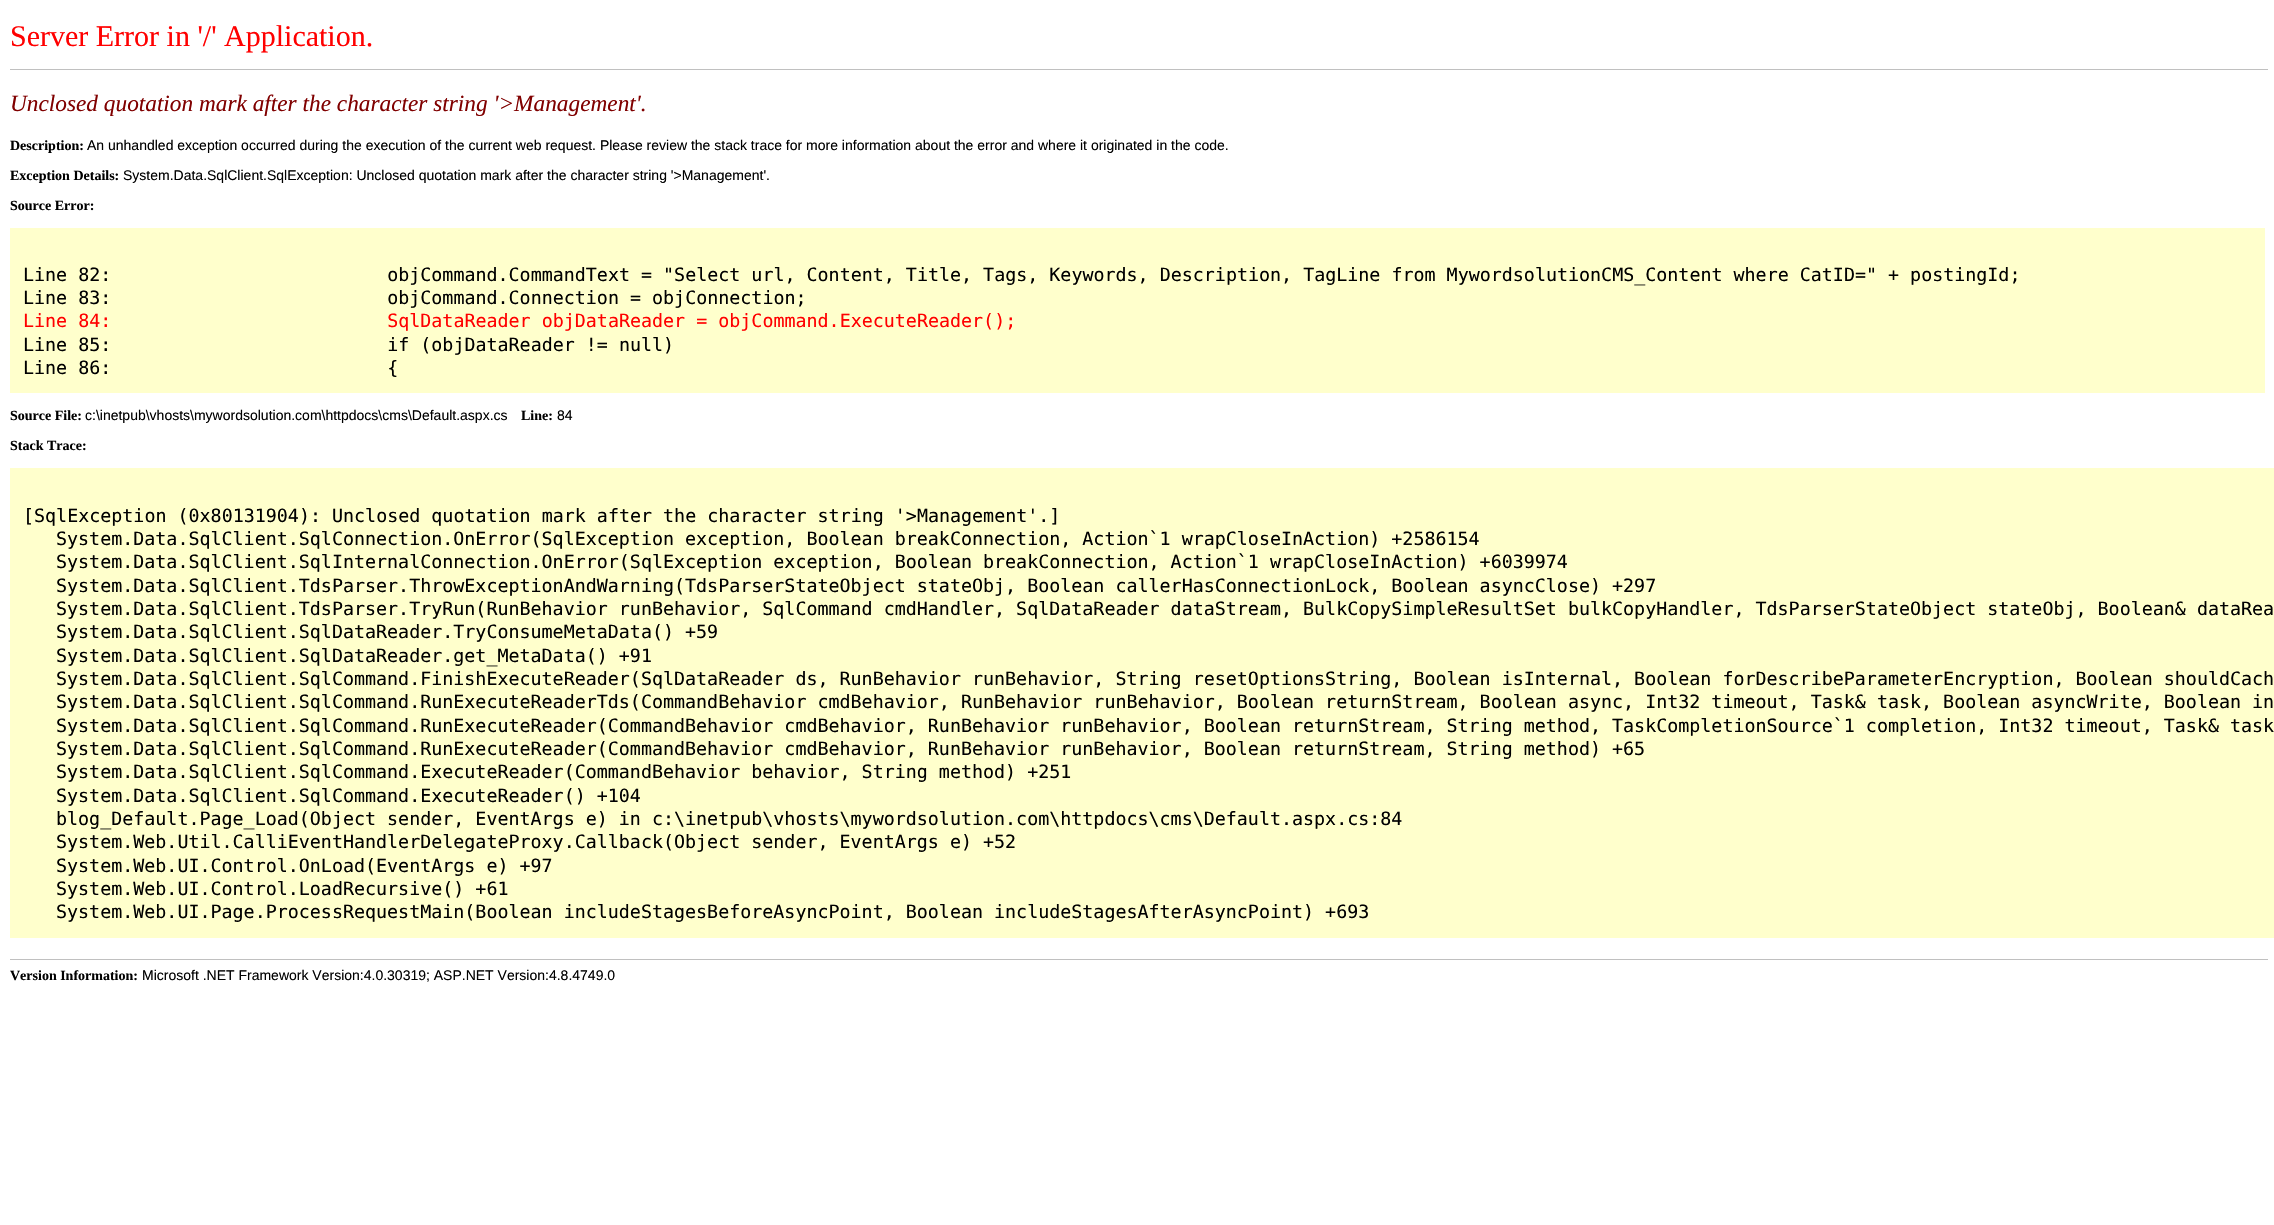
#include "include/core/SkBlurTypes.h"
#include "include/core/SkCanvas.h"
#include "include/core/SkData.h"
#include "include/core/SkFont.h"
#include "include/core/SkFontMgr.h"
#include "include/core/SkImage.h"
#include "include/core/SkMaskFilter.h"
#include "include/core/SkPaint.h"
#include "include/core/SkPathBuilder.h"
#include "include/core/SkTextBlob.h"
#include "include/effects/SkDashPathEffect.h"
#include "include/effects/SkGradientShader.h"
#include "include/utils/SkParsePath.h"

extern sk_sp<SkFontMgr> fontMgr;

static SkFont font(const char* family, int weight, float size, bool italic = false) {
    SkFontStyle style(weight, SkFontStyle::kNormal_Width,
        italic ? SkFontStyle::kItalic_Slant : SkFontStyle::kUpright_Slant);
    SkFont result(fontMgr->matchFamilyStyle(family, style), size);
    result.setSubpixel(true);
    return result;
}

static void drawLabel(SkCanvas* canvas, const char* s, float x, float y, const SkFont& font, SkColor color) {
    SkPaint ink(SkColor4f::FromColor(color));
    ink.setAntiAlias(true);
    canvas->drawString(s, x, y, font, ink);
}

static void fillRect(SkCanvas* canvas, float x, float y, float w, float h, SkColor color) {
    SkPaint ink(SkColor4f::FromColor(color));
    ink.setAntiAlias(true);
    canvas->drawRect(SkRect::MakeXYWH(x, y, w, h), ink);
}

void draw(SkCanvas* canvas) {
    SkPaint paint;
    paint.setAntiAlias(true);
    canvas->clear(0xFFFFFFFF);
    SkFont font1 = font("Liberation Serif", 400, 30);
    drawLabel(canvas, "Server Error in '/' Application.", 10, 46, font1, 0xFFFF0000);
    fillRect(canvas, 10, 69, 2258, 1, 0xFFC0C0C0);
    SkFont font2 = font("Liberation Serif", 400, 23.3f, true);
    drawLabel(canvas, "Unclosed quotation mark after the character string '>Management'.", 10, 111, font2, 0xFF800000);
    SkFont font3 = font("Liberation Serif", 700, 14);
    drawLabel(canvas, "Description:", 10, 150, font3, 0xFF000000);
    SkFont font4 = font("Liberation Sans", 400, 14);
    drawLabel(canvas, "An unhandled exception occurred during the execution of the current web request. Please review the stack trace for more information about the error and where it originated in the code.", 87, 150, font4, 0xFF000000);
    drawLabel(canvas, "Exception Details:", 10, 180, font3, 0xFF000000);
    drawLabel(canvas, "System.Data.SqlClient.SqlException: Unclosed quotation mark after the character string '>Management'.", 123, 180, font4, 0xFF000000);
    drawLabel(canvas, "Source Error:", 10, 210, font3, 0xFF000000);
    fillRect(canvas, 10, 228, 2255, 165, 0xFFFFFFCC);
    SkFont font5 = font("DejaVu Sans Mono", 400, 18.33f);
    drawLabel(canvas, "Line 82:                         objCommand.CommandText = \"Select url, Content, Title, Tags, Keywords, Description, TagLine from MywordsolutionCMS_Content where CatID=\" + postingId;", 23, 281, font5, 0xFF000000);
    drawLabel(canvas, "Line 83:                         objCommand.Connection = objConnection;", 23, 304, font5, 0xFF000000);
    drawLabel(canvas, "Line 84:                         SqlDataReader objDataReader = objCommand.ExecuteReader();", 23, 327, font5, 0xFFFF0000);
    drawLabel(canvas, "Line 85:                         if (objDataReader != null)", 23, 351, font5, 0xFF000000);
    drawLabel(canvas, "Line 86:                         {", 23, 374, font5, 0xFF000000);
    drawLabel(canvas, "Source File:", 10, 420, font3, 0xFF000000);
    drawLabel(canvas, "c:\\inetpub\\vhosts\\mywordsolution.com\\httpdocs\\cms\\Default.aspx.cs", 85, 420, font4, 0xFF000000);
    drawLabel(canvas, "Line:", 521, 420, font3, 0xFF000000);
    drawLabel(canvas, "84", 557, 420, font4, 0xFF000000);
    drawLabel(canvas, "Stack Trace:", 10, 450, font3, 0xFF000000);
    fillRect(canvas, 10, 468, 2264, 470, 0xFFFFFFCC);
    drawLabel(canvas, "[SqlException (0x80131904): Unclosed quotation mark after the character string '>Management'.]", 23, 522, font5, 0xFF000000);
    drawLabel(canvas, "System.Data.SqlClient.SqlConnection.OnError(SqlException exception, Boolean breakConnection, Action`1 wrapCloseInAction) +2586154", 56, 545, font5, 0xFF000000);
    drawLabel(canvas, "System.Data.SqlClient.SqlInternalConnection.OnError(SqlException exception, Boolean breakConnection, Action`1 wrapCloseInAction) +6039974", 56, 568, font5, 0xFF000000);
    drawLabel(canvas, "System.Data.SqlClient.TdsParser.ThrowExceptionAndWarning(TdsParserStateObject stateObj, Boolean callerHasConnectionLock, Boolean asyncClose) +297", 56, 592, font5, 0xFF000000);
    drawLabel(canvas, "System.Data.SqlClient.TdsParser.TryRun(RunBehavior runBehavior, SqlCommand cmdHandler, SqlDataReader dataStream, BulkCopySimpleResultSet bulkCopyHandler, TdsParserStateObject stateObj, Boolean& dataRea", 56, 615, font5, 0xFF000000);
    drawLabel(canvas, "System.Data.SqlClient.SqlDataReader.TryConsumeMetaData() +59", 56, 638, font5, 0xFF000000);
    drawLabel(canvas, "System.Data.SqlClient.SqlDataReader.get_MetaData() +91", 56, 662, font5, 0xFF000000);
    drawLabel(canvas, "System.Data.SqlClient.SqlCommand.FinishExecuteReader(SqlDataReader ds, RunBehavior runBehavior, String resetOptionsString, Boolean isInternal, Boolean forDescribeParameterEncryption, Boolean shouldCach", 56, 685, font5, 0xFF000000);
    drawLabel(canvas, "System.Data.SqlClient.SqlCommand.RunExecuteReaderTds(CommandBehavior cmdBehavior, RunBehavior runBehavior, Boolean returnStream, Boolean async, Int32 timeout, Task& task, Boolean asyncWrite, Boolean in", 56, 708, font5, 0xFF000000);
    drawLabel(canvas, "System.Data.SqlClient.SqlCommand.RunExecuteReader(CommandBehavior cmdBehavior, RunBehavior runBehavior, Boolean returnStream, String method, TaskCompletionSource`1 completion, Int32 timeout, Task& task", 56, 732, font5, 0xFF000000);
    drawLabel(canvas, "System.Data.SqlClient.SqlCommand.RunExecuteReader(CommandBehavior cmdBehavior, RunBehavior runBehavior, Boolean returnStream, String method) +65", 56, 755, font5, 0xFF000000);
    drawLabel(canvas, "System.Data.SqlClient.SqlCommand.ExecuteReader(CommandBehavior behavior, String method) +251", 56, 778, font5, 0xFF000000);
    drawLabel(canvas, "System.Data.SqlClient.SqlCommand.ExecuteReader() +104", 56, 802, font5, 0xFF000000);
    drawLabel(canvas, "blog_Default.Page_Load(Object sender, EventArgs e) in c:\\inetpub\\vhosts\\mywordsolution.com\\httpdocs\\cms\\Default.aspx.cs:84", 56, 825, font5, 0xFF000000);
    drawLabel(canvas, "System.Web.Util.CalliEventHandlerDelegateProxy.Callback(Object sender, EventArgs e) +52", 56, 848, font5, 0xFF000000);
    drawLabel(canvas, "System.Web.UI.Control.OnLoad(EventArgs e) +97", 56, 872, font5, 0xFF000000);
    drawLabel(canvas, "System.Web.UI.Control.LoadRecursive() +61", 56, 895, font5, 0xFF000000);
    drawLabel(canvas, "System.Web.UI.Page.ProcessRequestMain(Boolean includeStagesBeforeAsyncPoint, Boolean includeStagesAfterAsyncPoint) +693", 56, 918, font5, 0xFF000000);
    fillRect(canvas, 10, 959, 2258, 1, 0xFFC0C0C0);
    drawLabel(canvas, "Version Information:", 10, 980, font3, 0xFF000000);
    drawLabel(canvas, "Microsoft .NET Framework Version:4.0.30319; ASP.NET Version:4.8.4749.0", 142, 980, font4, 0xFF000000);
}
